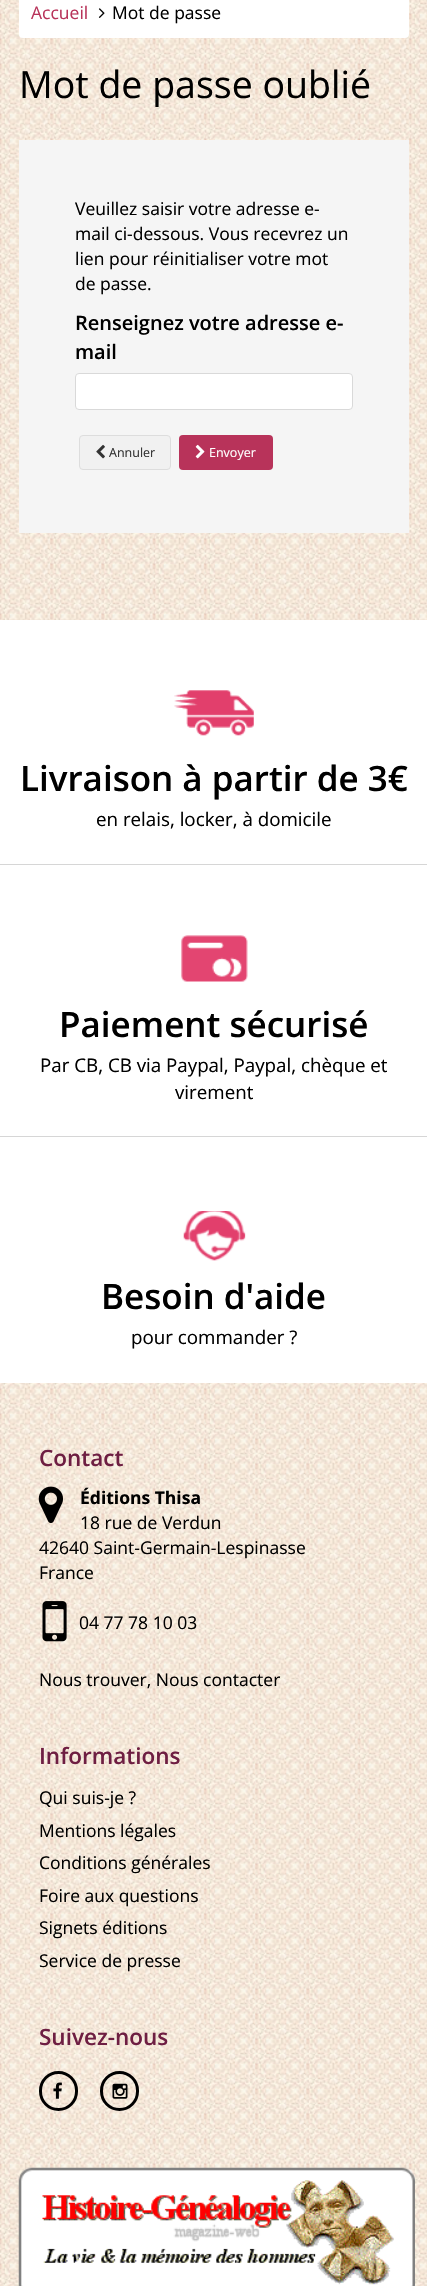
#include "include/core/SkBlurTypes.h"
#include "include/core/SkCanvas.h"
#include "include/core/SkData.h"
#include "include/core/SkFont.h"
#include "include/core/SkFontMgr.h"
#include "include/core/SkImage.h"
#include "include/core/SkMaskFilter.h"
#include "include/core/SkPaint.h"
#include "include/core/SkPathBuilder.h"
#include "include/core/SkTextBlob.h"
#include "include/effects/SkDashPathEffect.h"
#include "include/effects/SkGradientShader.h"
#include "include/utils/SkParsePath.h"

extern sk_sp<SkFontMgr> fontMgr;

static SkFont font(const char* family, int weight, float size, bool italic = false) {
    SkFontStyle style(weight, SkFontStyle::kNormal_Width,
        italic ? SkFontStyle::kItalic_Slant : SkFontStyle::kUpright_Slant);
    SkFont result(fontMgr->matchFamilyStyle(family, style), size);
    result.setSubpixel(true);
    return result;
}

static void drawLabel(SkCanvas* canvas, const char* s, float x, float y, const SkFont& font, SkColor color) {
    SkPaint ink(SkColor4f::FromColor(color));
    ink.setAntiAlias(true);
    canvas->drawString(s, x, y, font, ink);
}

static void fillRect(SkCanvas* canvas, float x, float y, float w, float h, SkColor color) {
    SkPaint ink(SkColor4f::FromColor(color));
    ink.setAntiAlias(true);
    canvas->drawRect(SkRect::MakeXYWH(x, y, w, h), ink);
}

static void fillRRect(SkCanvas* canvas, float x, float y, float w, float h, float radius, SkColor color) {
    SkPaint ink(SkColor4f::FromColor(color));
    ink.setAntiAlias(true);
    canvas->drawRoundRect(SkRect::MakeXYWH(x, y, w, h), radius, radius, ink);
}

static void drawPhoto(SkCanvas* canvas, const char* path, float x, float y, float w, float h) {
    auto image = SkImages::DeferredFromEncodedData(SkData::MakeFromFileName(path));
    canvas->drawImageRect(image, SkRect::MakeXYWH(x, y, w, h), SkSamplingOptions());
}

void draw(SkCanvas* canvas) {
    SkPaint paint;
    paint.setAntiAlias(true);
    canvas->clear(0xFFFFFFFF);
    drawPhoto(canvas, "assets/img1.png", 0, 0, 427, 2286);
    fillRRect(canvas, 19, -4, 390, 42, 4, 0xFFFFFFFF);
    SkFont font1 = font("Open Sans", 400, 17.5f);
    drawLabel(canvas, "Accueil", 31, 19, font1, 0xFFB8335A);
    drawPhoto(canvas, "assets/img2.png", 98, 8, 7, 10);
    drawLabel(canvas, "Mot de passe", 112, 19, font1, 0xFF000000);
    SkFont font2 = font("Open Sans", 400, 37.5f);
    drawLabel(canvas, "Mot de passe oublié", 19, 98, font2, 0xFF000000);
    fillRect(canvas, 19, 140, 390, 393, 0xFFF5F5F5);
    drawLabel(canvas, "Veuillez saisir votre adresse e-", 75, 215, font1, 0xFF000000);
    drawLabel(canvas, "mail ci-dessous. Vous recevrez un", 75, 240, font1, 0xFF000000);
    drawLabel(canvas, "lien pour réinitialiser votre mot", 75, 265, font1, 0xFF000000);
    drawLabel(canvas, "de passe.", 75, 290, font1, 0xFF000000);
    SkFont font3 = font("Open Sans", 600, 20);
    drawLabel(canvas, "Renseignez votre adresse e-", 75, 330, font3, 0xFF000000);
    drawLabel(canvas, "mail", 75, 359, font3, 0xFF000000);
    paint.setColor(0xFFFFFFFF);
    canvas->drawRoundRect(SkRect::MakeXYWH(75.5f, 373.5f, 277, 36), 3.5f, 3.5f, paint);
    paint.setStroke(true);
    paint.setStrokeWidth(1);
    paint.setColor(0xFFD9D9D9);
    canvas->drawRoundRect(SkRect::MakeXYWH(75.5f, 373.5f, 277, 36), 3.5f, 3.5f, paint);
    paint.setStroke(false);
    paint.setColor(0xFFF1F1F1);
    canvas->drawRoundRect(SkRect::MakeXYWH(79.5f, 435.5f, 91, 34), 3.5f, 3.5f, paint);
    paint.setStroke(true);
    paint.setColor(0xFFDDDDDD);
    canvas->drawRoundRect(SkRect::MakeXYWH(79.5f, 435.5f, 91, 34), 3.5f, 3.5f, paint);
    drawPhoto(canvas, "assets/img3.png", 96, 444, 9, 15);
    SkFont font4 = font("Open Sans", 400, 12.5f);
    drawLabel(canvas, "Annuler", 109, 457, font4, 0xFF333333);
    fillRRect(canvas, 179, 435, 94, 35, 4, 0xFFB8335A);
    drawPhoto(canvas, "assets/img4.png", 195, 444, 10, 15);
    drawLabel(canvas, "Envoyer", 209, 457, font4, 0xFFFFFFFF);
    fillRect(canvas, 0, 620, 427, 763, 0xFFFFFFFF);
    drawPhoto(canvas, "assets/img5.png", 174, 690, 80, 46);
    SkFont font5 = font("Open Sans", 600, 35);
    drawLabel(canvas, "Livraison à partir de 3€", 20, 791, font5, 0xFF000000);
    SkFont font6 = font("Open Sans", 400, 18.75f);
    drawLabel(canvas, "en relais, locker, à domicile", 96, 826, font6, 0xFF000000);
    fillRect(canvas, 0, 864, 427, 1, 0xFFD6D6D6);
    drawPhoto(canvas, "assets/img6.png", 181, 935, 67, 47);
    drawLabel(canvas, "Paiement sécurisé", 59, 1037, font5, 0xFF000000);
    drawLabel(canvas, "Par CB, CB via Paypal, Paypal, chèque et", 40, 1072, font6, 0xFF000000);
    drawLabel(canvas, "virement", 175, 1099, font6, 0xFF000000);
    fillRect(canvas, 0, 1136, 427, 1, 0xFFD6D6D6);
    drawPhoto(canvas, "assets/img7.png", 183, 1211, 63, 50);
    drawLabel(canvas, "Besoin d'aide", 101, 1309, font5, 0xFF000000);
    drawLabel(canvas, "pour commander ?", 131, 1344, font6, 0xFF000000);
    SkFont font7 = font("Open Sans", 600, 22.5f);
    drawLabel(canvas, "Contact", 39, 1466, font7, 0xFF6E1E42);
    drawPhoto(canvas, "assets/img8.png", 38, 1486, 25, 37);
    SkFont font8 = font("Open Sans", 700, 17.5f);
    drawLabel(canvas, "Éditions Thisa", 80, 1504, font8, 0xFF000000);
    drawLabel(canvas, "18 rue de Verdun", 80, 1529, font1, 0xFF000000);
    drawLabel(canvas, "42640 Saint-Germain-Lespinasse", 39, 1554, font1, 0xFF000000);
    drawLabel(canvas, "France", 39, 1579, font1, 0xFF000000);
    drawPhoto(canvas, "assets/img9.png", 42, 1601, 25, 41);
    drawLabel(canvas, "04 77 78 10 03", 79, 1629, font1, 0xFF000000);
    drawLabel(canvas, "Nous trouver, Nous contacter", 39, 1686, font1, 0xFF000000);
    drawLabel(canvas, "Informations", 39, 1764, font7, 0xFF6E1E42);
    drawLabel(canvas, "Qui suis-je ?", 39, 1804, font1, 0xFF000000);
    drawLabel(canvas, "Mentions légales", 39, 1837, font1, 0xFF000000);
    drawLabel(canvas, "Conditions générales", 39, 1869, font1, 0xFF000000);
    drawLabel(canvas, "Foire aux questions", 39, 1902, font1, 0xFF000000);
    drawLabel(canvas, "Signets éditions", 39, 1934, font1, 0xFF000000);
    drawLabel(canvas, "Service de presse", 39, 1967, font1, 0xFF000000);
    drawLabel(canvas, "Suivez-nous", 39, 2045, font7, 0xFF6E1E42);
    paint.setStrokeWidth(3);
    paint.setColor(0xFF000000);
    canvas->drawRoundRect(SkRect::MakeXYWH(40.5f, 2072.5f, 36, 37), 18, 18, paint);
    drawPhoto(canvas, "assets/img10.png", 53, 2082, 9, 17);
    canvas->drawRoundRect(SkRect::MakeXYWH(101.5f, 2072.5f, 36, 37), 18, 18, paint);
    drawPhoto(canvas, "assets/img11.png", 112, 2083, 16, 16);
    drawPhoto(canvas, "assets/img12.png", 18, 2167, 397, 119);
}
